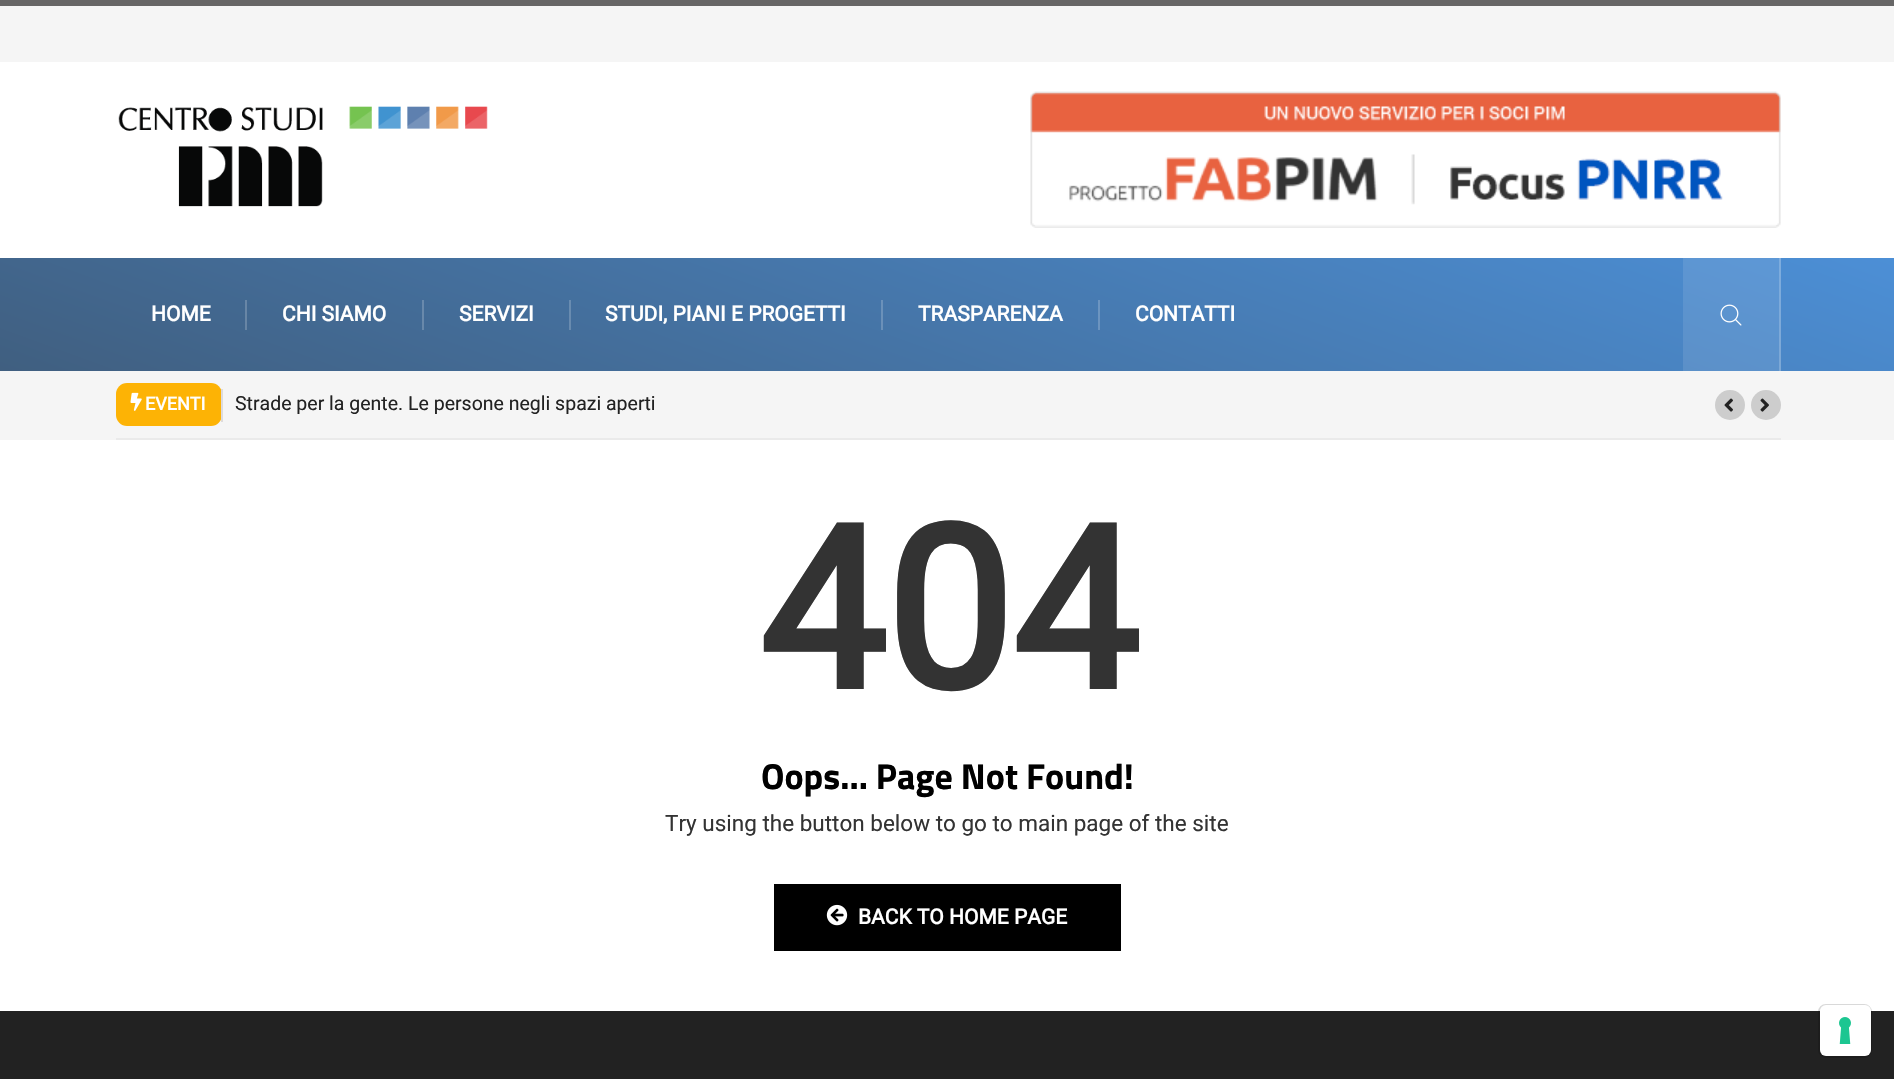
#include "include/core/SkBlurTypes.h"
#include "include/core/SkCanvas.h"
#include "include/core/SkData.h"
#include "include/core/SkFont.h"
#include "include/core/SkFontMgr.h"
#include "include/core/SkImage.h"
#include "include/core/SkMaskFilter.h"
#include "include/core/SkPaint.h"
#include "include/core/SkPathBuilder.h"
#include "include/core/SkTextBlob.h"
#include "include/effects/SkDashPathEffect.h"
#include "include/effects/SkGradientShader.h"
#include "include/utils/SkParsePath.h"

extern sk_sp<SkFontMgr> fontMgr;

static SkFont font(const char* family, int weight, float size, bool italic = false) {
    SkFontStyle style(weight, SkFontStyle::kNormal_Width,
        italic ? SkFontStyle::kItalic_Slant : SkFontStyle::kUpright_Slant);
    SkFont result(fontMgr->matchFamilyStyle(family, style), size);
    result.setSubpixel(true);
    return result;
}

static void drawLabel(SkCanvas* canvas, const char* s, float x, float y, const SkFont& font, SkColor color) {
    SkPaint ink(SkColor4f::FromColor(color));
    ink.setAntiAlias(true);
    canvas->drawString(s, x, y, font, ink);
}

static void fillRect(SkCanvas* canvas, float x, float y, float w, float h, SkColor color) {
    SkPaint ink(SkColor4f::FromColor(color));
    ink.setAntiAlias(true);
    canvas->drawRect(SkRect::MakeXYWH(x, y, w, h), ink);
}

static void fillRRect(SkCanvas* canvas, float x, float y, float w, float h, float radius, SkColor color) {
    SkPaint ink(SkColor4f::FromColor(color));
    ink.setAntiAlias(true);
    canvas->drawRoundRect(SkRect::MakeXYWH(x, y, w, h), radius, radius, ink);
}

static void drawPhoto(SkCanvas* canvas, const char* path, float x, float y, float w, float h) {
    auto image = SkImages::DeferredFromEncodedData(SkData::MakeFromFileName(path));
    canvas->drawImageRect(image, SkRect::MakeXYWH(x, y, w, h), SkSamplingOptions());
}

void draw(SkCanvas* canvas) {
    SkPaint paint;
    paint.setAntiAlias(true);
    canvas->clear(0xFFFFFFFF);
    fillRect(canvas, 0, 0, 1894, 6, 0xFF676666);
    fillRect(canvas, 0, 6, 1894, 56, 0xFFF5F5F5);
    drawPhoto(canvas, "assets/img1.png", 118, 106, 370, 101);
    drawPhoto(canvas, "assets/img2.png", 1030, 91, 751, 137);
    {
        const SkColor colors[] = {0xFF405F80, 0xFF4C8FD6};
        const float stops[] = {0, 1};
        const SkPoint ends[] = {{818, 668}, {1076, -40}};
        paint.setShader(SkGradientShader::MakeLinear(ends, colors, stops, 2, SkTileMode::kClamp));
        paint.setAlpha(255);
    }
    canvas->drawRect(SkRect::MakeXYWH(0, 258, 1894, 113), paint);
    {
        const SkColor colors[] = {0xFF667F99, 0xFF70A5DE};
        const float stops[] = {0, 1};
        const SkPoint ends[] = {{818, 668}, {1076, -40}};
        paint.setShader(SkGradientShader::MakeLinear(ends, colors, stops, 2, SkTileMode::kClamp));
        paint.setAlpha(255);
    }
    canvas->drawRect(SkRect::MakeXYWH(1098, 300, 2, 30), paint);
    canvas->drawRect(SkRect::MakeXYWH(881, 300, 2, 30), paint);
    canvas->drawRect(SkRect::MakeXYWH(569, 300, 2, 30), paint);
    canvas->drawRect(SkRect::MakeXYWH(422, 300, 2, 30), paint);
    canvas->drawRect(SkRect::MakeXYWH(245, 300, 2, 30), paint);
    {
        const SkColor colors[] = {0xFF536F8D, 0xFF5E9ADA};
        const float stops[] = {0, 1};
        const SkPoint ends[] = {{818, 668}, {1076, -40}};
        paint.setShader(SkGradientShader::MakeLinear(ends, colors, stops, 2, SkTileMode::kClamp));
        paint.setAlpha(255);
    }
    canvas->drawRect(SkRect::MakeXYWH(1683, 258, 96, 113), paint);
    {
        const SkColor colors[] = {0xFF758CA4, 0xFF7EAEE1};
        const float stops[] = {0, 1};
        const SkPoint ends[] = {{818, 668}, {1076, -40}};
        paint.setShader(SkGradientShader::MakeLinear(ends, colors, stops, 2, SkTileMode::kClamp));
        paint.setAlpha(255);
    }
    canvas->drawRect(SkRect::MakeXYWH(1779, 258, 2, 113), paint);
    SkFont font1 = font("Roboto", 700, 21);
    drawLabel(canvas, "HOME", 151, 321, font1, 0xFFFFFFFF);
    drawLabel(canvas, "CHI SIAMO", 282, 321, font1, 0xFFFFFFFF);
    drawLabel(canvas, "SERVIZI", 459, 321, font1, 0xFFFFFFFF);
    drawLabel(canvas, "STUDI, PIANI E PROGETTI", 605, 321, font1, 0xFFFFFFFF);
    drawLabel(canvas, "TRASPARENZA", 918, 321, font1, 0xFFFFFFFF);
    drawLabel(canvas, "CONTATTI", 1135, 321, font1, 0xFFFFFFFF);
    drawPhoto(canvas, "assets/img3.png", 1720, 304, 22, 22);
    fillRect(canvas, 0, 371, 1894, 69, 0xFFF5F5F5);
    fillRect(canvas, 116, 438, 1665, 2, 0xFFEAEAEA);
    fillRRect(canvas, 116, 383, 106, 43, 11, 0xFFFDB305);
    fillRect(canvas, 221, 389, 2, 33, 0xFFDEDBDB);
    drawPhoto(canvas, "assets/img4.png", 130, 392, 12, 19);
    SkFont font2 = font("Roboto", 700, 18);
    drawLabel(canvas, "EVENTI", 145, 410, font2, 0xFFFFFFFF);
    SkFont font3 = font("Roboto", 400, 19.5f);
    drawLabel(canvas, "Strade per la gente. Le persone negli spazi aperti", 235, 410, font3, 0xFF222222);
    paint.setShader(nullptr);
    paint.setColor(0xFFCDCDCD);
    canvas->drawCircle(1730, 405, 15, paint);
    drawPhoto(canvas, "assets/img5.png", 1724, 398, 9, 14);
    canvas->drawCircle(1766, 405, 15, paint);
    drawPhoto(canvas, "assets/img6.png", 1760, 398, 9, 14);
    SkFont font4 = font("Roboto", 700, 225);
    drawLabel(canvas, "404", 758, 689, font4, 0xFF333333);
    SkFont font5 = font("Titillium Web", 700, 36);
    drawLabel(canvas, "Oops... Page Not Found!", 761, 789, font5, 0xFF000000);
    SkFont font6 = font("Roboto", 400, 22.5f);
    drawLabel(canvas, "Try using the button below to go to main page of the site", 665, 831, font6, 0xFF333333);
    fillRect(canvas, 774, 884, 347, 67, 0xFF000000);
    drawPhoto(canvas, "assets/img7.png", 826, 904, 22, 22);
    drawLabel(canvas, "BACK TO HOME PAGE", 858, 924, font1, 0xFFFFFFFF);
    fillRect(canvas, 0, 1011, 1894, 68, 0xFF222222);
    paint.setStroke(true);
    paint.setStrokeWidth(2);
    paint.setColor(0x26000000);
    canvas->drawRoundRect(SkRect::MakeXYWH(1819, 1005, 52, 52), 7, 7, paint);
    fillRRect(canvas, 1820, 1005, 51, 51, 6, 0xFFFFFFFF);
    drawPhoto(canvas, "assets/img8.png", 1839, 1017, 12, 27);
}
